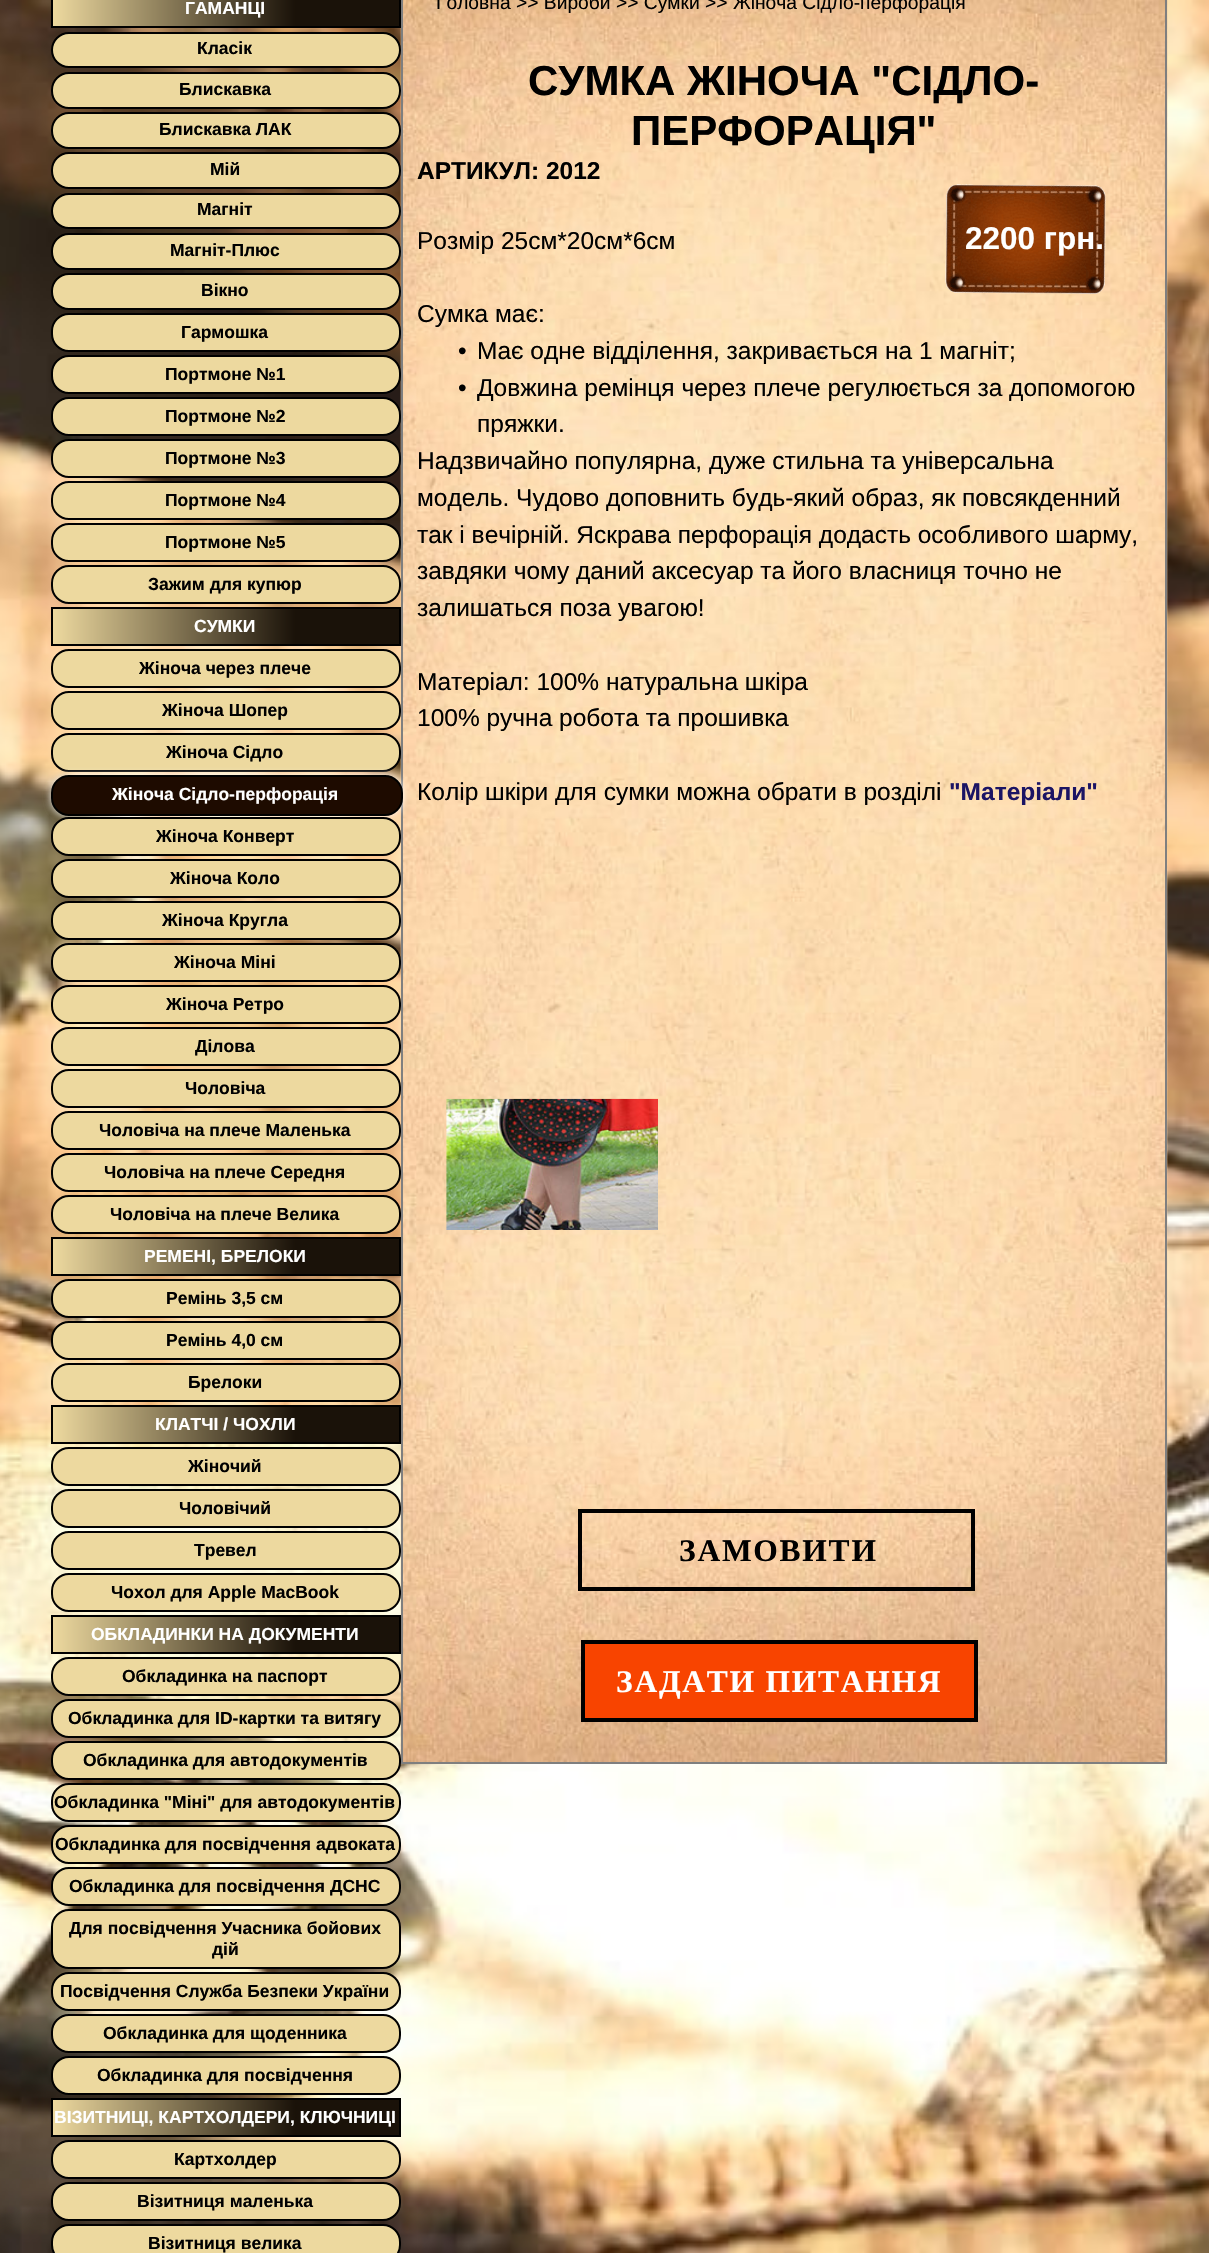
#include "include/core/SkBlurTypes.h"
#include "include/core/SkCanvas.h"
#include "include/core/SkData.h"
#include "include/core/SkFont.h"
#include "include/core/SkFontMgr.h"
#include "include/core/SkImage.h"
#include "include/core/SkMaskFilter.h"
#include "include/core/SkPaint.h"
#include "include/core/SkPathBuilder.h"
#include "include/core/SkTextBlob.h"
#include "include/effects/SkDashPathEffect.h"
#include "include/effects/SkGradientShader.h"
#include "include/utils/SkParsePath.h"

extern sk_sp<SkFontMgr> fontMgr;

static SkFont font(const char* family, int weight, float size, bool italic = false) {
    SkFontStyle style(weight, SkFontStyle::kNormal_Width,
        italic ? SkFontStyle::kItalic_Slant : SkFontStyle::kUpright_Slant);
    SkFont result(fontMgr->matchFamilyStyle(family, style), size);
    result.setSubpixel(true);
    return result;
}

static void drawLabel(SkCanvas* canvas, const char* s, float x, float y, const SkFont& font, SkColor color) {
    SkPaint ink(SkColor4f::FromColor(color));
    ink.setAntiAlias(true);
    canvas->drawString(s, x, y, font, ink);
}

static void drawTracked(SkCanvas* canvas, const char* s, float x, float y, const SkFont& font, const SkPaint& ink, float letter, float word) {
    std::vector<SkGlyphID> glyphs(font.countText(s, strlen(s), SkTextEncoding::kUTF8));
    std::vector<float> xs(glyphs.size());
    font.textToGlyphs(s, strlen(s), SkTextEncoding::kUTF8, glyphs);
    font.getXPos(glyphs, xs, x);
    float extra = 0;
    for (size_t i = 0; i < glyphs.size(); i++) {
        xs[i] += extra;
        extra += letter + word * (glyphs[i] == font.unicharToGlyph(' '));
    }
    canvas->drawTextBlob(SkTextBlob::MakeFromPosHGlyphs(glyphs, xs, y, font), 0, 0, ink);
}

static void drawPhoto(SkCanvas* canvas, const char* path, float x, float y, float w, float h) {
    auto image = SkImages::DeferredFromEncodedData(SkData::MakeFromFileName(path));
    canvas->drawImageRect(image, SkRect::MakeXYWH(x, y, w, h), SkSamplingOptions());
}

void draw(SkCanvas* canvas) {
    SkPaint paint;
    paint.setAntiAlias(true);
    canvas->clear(0xFFFFFFFF);
    drawPhoto(canvas, "assets/img1.png", 0, 0, 1209, 2253);
    {
        const SkColor colors[] = {0xFFEDD99F, 0xFF1A1209};
        const float stops[] = {0, 0.7f};
        const SkPoint ends[] = {{53, 10}, {399, 10}};
        paint.setShader(SkGradientShader::MakeLinear(ends, colors, stops, 2, SkTileMode::kClamp));
        paint.setAlpha(255);
    }
    canvas->drawRect(SkRect::MakeXYWH(53, 0, 346, 26), paint);
    drawPhoto(canvas, "assets/img2.png", 400, 0, 768, 1762);
    paint.setStroke(true);
    paint.setStrokeWidth(2);
    paint.setShader(nullptr);
    paint.setColor(0xFF000000);
    canvas->drawRect(SkRect::MakeXYWH(52, -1, 348, 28), paint);
    SkFont font1 = font("Liberation Sans", 700, 17.5f);
    drawLabel(canvas, "ГАМАНЦІ", 185, 14, font1, 0xFFFFFFFF);
    paint.setStroke(false);
    paint.setColor(0xFFEDD99F);
    canvas->drawRoundRect(SkRect::MakeXYWH(52, 33, 348, 34), 17, 17, paint);
    paint.setStroke(true);
    paint.setColor(0xFF000000);
    canvas->drawRoundRect(SkRect::MakeXYWH(52, 33, 348, 34), 17, 17, paint);
    drawLabel(canvas, "Класік", 197, 54, font1, 0xFF000000);
    paint.setStroke(false);
    paint.setColor(0xFFEDD99F);
    canvas->drawRoundRect(SkRect::MakeXYWH(52, 73, 348, 35), 17, 17, paint);
    paint.setStroke(true);
    paint.setColor(0xFF000000);
    canvas->drawRoundRect(SkRect::MakeXYWH(52, 73, 348, 35), 17, 17, paint);
    drawLabel(canvas, "Блискавка", 179, 95, font1, 0xFF000000);
    paint.setStroke(false);
    paint.setColor(0xFFEDD99F);
    canvas->drawRoundRect(SkRect::MakeXYWH(52, 113, 348, 35), 17, 17, paint);
    paint.setStroke(true);
    paint.setColor(0xFF000000);
    canvas->drawRoundRect(SkRect::MakeXYWH(52, 113, 348, 35), 17, 17, paint);
    drawLabel(canvas, "Блискавка ЛАК", 159, 135, font1, 0xFF000000);
    paint.setStroke(false);
    paint.setColor(0xFFEDD99F);
    canvas->drawRoundRect(SkRect::MakeXYWH(52, 153, 348, 35), 17, 17, paint);
    paint.setStroke(true);
    paint.setColor(0xFF000000);
    canvas->drawRoundRect(SkRect::MakeXYWH(52, 153, 348, 35), 17, 17, paint);
    drawLabel(canvas, "Мій", 210, 175, font1, 0xFF000000);
    paint.setStroke(false);
    paint.setColor(0xFFEDD99F);
    canvas->drawRoundRect(SkRect::MakeXYWH(52, 194, 348, 34), 17, 17, paint);
    paint.setStroke(true);
    paint.setColor(0xFF000000);
    canvas->drawRoundRect(SkRect::MakeXYWH(52, 194, 348, 34), 17, 17, paint);
    drawLabel(canvas, "Магніт", 197, 215, font1, 0xFF000000);
    paint.setStroke(false);
    paint.setColor(0xFFEDD99F);
    canvas->drawRoundRect(SkRect::MakeXYWH(52, 234, 348, 35), 17, 17, paint);
    paint.setStroke(true);
    paint.setColor(0xFF000000);
    canvas->drawRoundRect(SkRect::MakeXYWH(52, 234, 348, 35), 17, 17, paint);
    drawLabel(canvas, "Магніт-Плюс", 170, 256, font1, 0xFF000000);
    paint.setStroke(false);
    paint.setColor(0xFFEDD99F);
    canvas->drawRoundRect(SkRect::MakeXYWH(52, 274, 348, 35), 17, 17, paint);
    paint.setStroke(true);
    paint.setColor(0xFF000000);
    canvas->drawRoundRect(SkRect::MakeXYWH(52, 274, 348, 35), 17, 17, paint);
    drawLabel(canvas, "Вікно", 201, 296, font1, 0xFF000000);
    paint.setStroke(false);
    paint.setColor(0xFFEDD99F);
    canvas->drawRoundRect(SkRect::MakeXYWH(52, 314, 348, 37), 17, 17, paint);
    paint.setStroke(true);
    paint.setColor(0xFF000000);
    canvas->drawRoundRect(SkRect::MakeXYWH(52, 314, 348, 37), 17, 17, paint);
    drawLabel(canvas, "Гармошка", 181, 338, font1, 0xFF000000);
    paint.setStroke(false);
    paint.setColor(0xFFEDD99F);
    canvas->drawRoundRect(SkRect::MakeXYWH(52, 356, 348, 37), 17, 17, paint);
    paint.setStroke(true);
    paint.setColor(0xFF000000);
    canvas->drawRoundRect(SkRect::MakeXYWH(52, 356, 348, 37), 17, 17, paint);
    drawLabel(canvas, "Портмоне №1", 165, 380, font1, 0xFF000000);
    paint.setStroke(false);
    paint.setColor(0xFFEDD99F);
    canvas->drawRoundRect(SkRect::MakeXYWH(52, 398, 348, 37), 17, 17, paint);
    paint.setStroke(true);
    paint.setColor(0xFF000000);
    canvas->drawRoundRect(SkRect::MakeXYWH(52, 398, 348, 37), 17, 17, paint);
    drawLabel(canvas, "Портмоне №2", 165, 422, font1, 0xFF000000);
    paint.setStroke(false);
    paint.setColor(0xFFEDD99F);
    canvas->drawRoundRect(SkRect::MakeXYWH(52, 440, 348, 37), 17, 17, paint);
    paint.setStroke(true);
    paint.setColor(0xFF000000);
    canvas->drawRoundRect(SkRect::MakeXYWH(52, 440, 348, 37), 17, 17, paint);
    drawLabel(canvas, "Портмоне №3", 165, 464, font1, 0xFF000000);
    paint.setStroke(false);
    paint.setColor(0xFFEDD99F);
    canvas->drawRoundRect(SkRect::MakeXYWH(52, 482, 348, 37), 17, 17, paint);
    paint.setStroke(true);
    paint.setColor(0xFF000000);
    canvas->drawRoundRect(SkRect::MakeXYWH(52, 482, 348, 37), 17, 17, paint);
    drawLabel(canvas, "Портмоне №4", 165, 506, font1, 0xFF000000);
    paint.setStroke(false);
    paint.setColor(0xFFEDD99F);
    canvas->drawRoundRect(SkRect::MakeXYWH(52, 524, 348, 37), 17, 17, paint);
    paint.setStroke(true);
    paint.setColor(0xFF000000);
    canvas->drawRoundRect(SkRect::MakeXYWH(52, 524, 348, 37), 17, 17, paint);
    drawLabel(canvas, "Портмоне №5", 165, 548, font1, 0xFF000000);
    paint.setStroke(false);
    paint.setColor(0xFFEDD99F);
    canvas->drawRoundRect(SkRect::MakeXYWH(52, 566, 348, 37), 17, 17, paint);
    paint.setStroke(true);
    paint.setColor(0xFF000000);
    canvas->drawRoundRect(SkRect::MakeXYWH(52, 566, 348, 37), 17, 17, paint);
    drawLabel(canvas, "Зажим для купюр", 148, 590, font1, 0xFF000000);
    paint.setStroke(false);
    {
        const SkColor colors[] = {0xFFEDD99F, 0xFF1A1209};
        const float stops[] = {0, 0.7f};
        const SkPoint ends[] = {{53, 627}, {399, 627}};
        paint.setShader(SkGradientShader::MakeLinear(ends, colors, stops, 2, SkTileMode::kClamp));
        paint.setAlpha(255);
    }
    canvas->drawRect(SkRect::MakeXYWH(53, 609, 346, 35), paint);
    paint.setStroke(true);
    paint.setShader(nullptr);
    paint.setColor(0xFF000000);
    canvas->drawRect(SkRect::MakeXYWH(52, 608, 348, 37), paint);
    drawLabel(canvas, "СУМКИ", 194, 632, font1, 0xFFFFFFFF);
    paint.setStroke(false);
    paint.setColor(0xFFEDD99F);
    canvas->drawRoundRect(SkRect::MakeXYWH(52, 650, 348, 37), 17, 17, paint);
    paint.setStroke(true);
    paint.setColor(0xFF000000);
    canvas->drawRoundRect(SkRect::MakeXYWH(52, 650, 348, 37), 17, 17, paint);
    drawLabel(canvas, "Жіноча через плече", 139, 674, font1, 0xFF000000);
    paint.setStroke(false);
    paint.setColor(0xFFEDD99F);
    canvas->drawRoundRect(SkRect::MakeXYWH(52, 692, 348, 37), 17, 17, paint);
    paint.setStroke(true);
    paint.setColor(0xFF000000);
    canvas->drawRoundRect(SkRect::MakeXYWH(52, 692, 348, 37), 17, 17, paint);
    drawLabel(canvas, "Жіноча Шопер", 162, 716, font1, 0xFF000000);
    paint.setStroke(false);
    paint.setColor(0xFFEDD99F);
    canvas->drawRoundRect(SkRect::MakeXYWH(52, 734, 348, 37), 17, 17, paint);
    paint.setStroke(true);
    paint.setColor(0xFF000000);
    canvas->drawRoundRect(SkRect::MakeXYWH(52, 734, 348, 37), 17, 17, paint);
    drawLabel(canvas, "Жіноча Сідло", 166, 758, font1, 0xFF000000);
    paint.setColor(0xFF7F7F7F);
    canvas->drawRect(SkRect::MakeXYWH(402, -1, 764, 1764), paint);
    paint.setStroke(false);
    paint.setColor(0x80FFFFFF);
    paint.setMaskFilter(SkMaskFilter::MakeBlur(kNormal_SkBlurStyle, 3.5f));
    canvas->drawRoundRect(SkRect::MakeXYWH(51, 775, 352, 41), 18, 18, paint);
    paint.setMaskFilter(nullptr);
    paint.setMaskFilter(SkMaskFilter::MakeBlur(kNormal_SkBlurStyle, 3.5f));
    canvas->drawRoundRect(SkRect::MakeXYWH(51, 775, 352, 41), 18, 18, paint);
    paint.setMaskFilter(nullptr);
    paint.setColor(0xFF1E0B00);
    canvas->drawRoundRect(SkRect::MakeXYWH(52, 776, 350, 39), 17, 17, paint);
    paint.setStroke(true);
    paint.setColor(0xFF000000);
    canvas->drawRoundRect(SkRect::MakeXYWH(52, 776, 350, 39), 17, 17, paint);
    drawLabel(canvas, "Жіноча Сідло-перфорація", 112, 800, font1, 0xFFFFFFFF);
    paint.setStroke(false);
    paint.setColor(0xFFEDD99F);
    canvas->drawRoundRect(SkRect::MakeXYWH(52, 818, 348, 37), 17, 17, paint);
    paint.setStroke(true);
    paint.setColor(0xFF000000);
    canvas->drawRoundRect(SkRect::MakeXYWH(52, 818, 348, 37), 17, 17, paint);
    drawLabel(canvas, "Жіноча Конверт", 156, 842, font1, 0xFF000000);
    paint.setStroke(false);
    paint.setColor(0xFFEDD99F);
    canvas->drawRoundRect(SkRect::MakeXYWH(52, 860, 348, 37), 17, 17, paint);
    paint.setStroke(true);
    paint.setColor(0xFF000000);
    canvas->drawRoundRect(SkRect::MakeXYWH(52, 860, 348, 37), 17, 17, paint);
    drawLabel(canvas, "Жіноча Коло", 170, 884, font1, 0xFF000000);
    paint.setStroke(false);
    paint.setColor(0xFFEDD99F);
    canvas->drawRoundRect(SkRect::MakeXYWH(52, 902, 348, 37), 17, 17, paint);
    paint.setStroke(true);
    paint.setColor(0xFF000000);
    canvas->drawRoundRect(SkRect::MakeXYWH(52, 902, 348, 37), 17, 17, paint);
    drawLabel(canvas, "Жіноча Кругла", 162, 926, font1, 0xFF000000);
    paint.setStroke(false);
    paint.setColor(0xFFEDD99F);
    canvas->drawRoundRect(SkRect::MakeXYWH(52, 944, 348, 37), 17, 17, paint);
    paint.setStroke(true);
    paint.setColor(0xFF000000);
    canvas->drawRoundRect(SkRect::MakeXYWH(52, 944, 348, 37), 17, 17, paint);
    drawLabel(canvas, "Жіноча Міні", 174, 968, font1, 0xFF000000);
    paint.setStroke(false);
    paint.setColor(0xFFEDD99F);
    canvas->drawRoundRect(SkRect::MakeXYWH(52, 986, 348, 37), 17, 17, paint);
    paint.setStroke(true);
    paint.setColor(0xFF000000);
    canvas->drawRoundRect(SkRect::MakeXYWH(52, 986, 348, 37), 17, 17, paint);
    drawLabel(canvas, "Жіноча Ретро", 166, 1010, font1, 0xFF000000);
    paint.setStroke(false);
    paint.setColor(0xFFEDD99F);
    canvas->drawRoundRect(SkRect::MakeXYWH(52, 1028, 348, 37), 17, 17, paint);
    paint.setStroke(true);
    paint.setColor(0xFF000000);
    canvas->drawRoundRect(SkRect::MakeXYWH(52, 1028, 348, 37), 17, 17, paint);
    drawLabel(canvas, "Ділова", 195, 1052, font1, 0xFF000000);
    paint.setStroke(false);
    paint.setColor(0xFFEDD99F);
    canvas->drawRoundRect(SkRect::MakeXYWH(52, 1070, 348, 37), 17, 17, paint);
    paint.setStroke(true);
    paint.setColor(0xFF000000);
    canvas->drawRoundRect(SkRect::MakeXYWH(52, 1070, 348, 37), 17, 17, paint);
    drawLabel(canvas, "Чоловіча", 185, 1094, font1, 0xFF000000);
    paint.setStroke(false);
    paint.setColor(0xFFEDD99F);
    canvas->drawRoundRect(SkRect::MakeXYWH(52, 1112, 348, 37), 17, 17, paint);
    paint.setStroke(true);
    paint.setColor(0xFF000000);
    canvas->drawRoundRect(SkRect::MakeXYWH(52, 1112, 348, 37), 17, 17, paint);
    drawLabel(canvas, "Чоловіча на плече Маленька", 99, 1136, font1, 0xFF000000);
    paint.setStroke(false);
    paint.setColor(0xFFEDD99F);
    canvas->drawRoundRect(SkRect::MakeXYWH(52, 1154, 348, 37), 17, 17, paint);
    paint.setStroke(true);
    paint.setColor(0xFF000000);
    canvas->drawRoundRect(SkRect::MakeXYWH(52, 1154, 348, 37), 17, 17, paint);
    drawLabel(canvas, "Чоловіча на плече Середня", 104, 1178, font1, 0xFF000000);
    paint.setStroke(false);
    paint.setColor(0xFFEDD99F);
    canvas->drawRoundRect(SkRect::MakeXYWH(52, 1196, 348, 37), 17, 17, paint);
    paint.setStroke(true);
    paint.setColor(0xFF000000);
    canvas->drawRoundRect(SkRect::MakeXYWH(52, 1196, 348, 37), 17, 17, paint);
    drawLabel(canvas, "Чоловіча на плече Велика", 110, 1220, font1, 0xFF000000);
    paint.setStroke(false);
    {
        const SkColor colors[] = {0xFFEDD99F, 0xFF1A1209};
        const float stops[] = {0, 0.7f};
        const SkPoint ends[] = {{53, 1257}, {399, 1257}};
        paint.setShader(SkGradientShader::MakeLinear(ends, colors, stops, 2, SkTileMode::kClamp));
        paint.setAlpha(255);
    }
    canvas->drawRect(SkRect::MakeXYWH(53, 1239, 346, 35), paint);
    paint.setStroke(true);
    paint.setShader(nullptr);
    paint.setColor(0xFF000000);
    canvas->drawRect(SkRect::MakeXYWH(52, 1238, 348, 37), paint);
    drawLabel(canvas, "РЕМЕНІ, БРЕЛОКИ", 144, 1262, font1, 0xFFFFFFFF);
    paint.setStroke(false);
    paint.setColor(0xFFEDD99F);
    canvas->drawRoundRect(SkRect::MakeXYWH(52, 1280, 348, 37), 17, 17, paint);
    paint.setStroke(true);
    paint.setColor(0xFF000000);
    canvas->drawRoundRect(SkRect::MakeXYWH(52, 1280, 348, 37), 17, 17, paint);
    drawLabel(canvas, "Ремінь 3,5 см", 166, 1304, font1, 0xFF000000);
    paint.setStroke(false);
    paint.setColor(0xFFEDD99F);
    canvas->drawRoundRect(SkRect::MakeXYWH(52, 1322, 348, 37), 17, 17, paint);
    paint.setStroke(true);
    paint.setColor(0xFF000000);
    canvas->drawRoundRect(SkRect::MakeXYWH(52, 1322, 348, 37), 17, 17, paint);
    drawLabel(canvas, "Ремінь 4,0 см", 166, 1346, font1, 0xFF000000);
    paint.setStroke(false);
    paint.setColor(0xFFEDD99F);
    canvas->drawRoundRect(SkRect::MakeXYWH(52, 1364, 348, 37), 17, 17, paint);
    paint.setStroke(true);
    paint.setColor(0xFF000000);
    canvas->drawRoundRect(SkRect::MakeXYWH(52, 1364, 348, 37), 17, 17, paint);
    drawLabel(canvas, "Брелоки", 188, 1388, font1, 0xFF000000);
    paint.setStroke(false);
    {
        const SkColor colors[] = {0xFFEDD99F, 0xFF1A1209};
        const float stops[] = {0, 0.7f};
        const SkPoint ends[] = {{53, 1425}, {399, 1425}};
        paint.setShader(SkGradientShader::MakeLinear(ends, colors, stops, 2, SkTileMode::kClamp));
        paint.setAlpha(255);
    }
    canvas->drawRect(SkRect::MakeXYWH(53, 1407, 346, 35), paint);
    paint.setStroke(true);
    paint.setShader(nullptr);
    paint.setColor(0xFF000000);
    canvas->drawRect(SkRect::MakeXYWH(52, 1406, 348, 37), paint);
    drawLabel(canvas, "КЛАТЧІ / ЧОХЛИ", 155, 1430, font1, 0xFFFFFFFF);
    paint.setStroke(false);
    paint.setColor(0xFFEDD99F);
    canvas->drawRoundRect(SkRect::MakeXYWH(52, 1448, 348, 37), 17, 17, paint);
    paint.setStroke(true);
    paint.setColor(0xFF000000);
    canvas->drawRoundRect(SkRect::MakeXYWH(52, 1448, 348, 37), 17, 17, paint);
    drawLabel(canvas, "Жіночий", 188, 1472, font1, 0xFF000000);
    paint.setStroke(false);
    paint.setColor(0xFFEDD99F);
    canvas->drawRoundRect(SkRect::MakeXYWH(52, 1490, 348, 37), 17, 17, paint);
    paint.setStroke(true);
    paint.setColor(0xFF000000);
    canvas->drawRoundRect(SkRect::MakeXYWH(52, 1490, 348, 37), 17, 17, paint);
    drawLabel(canvas, "Чоловічий", 179, 1514, font1, 0xFF000000);
    paint.setStroke(false);
    paint.setColor(0xFFEDD99F);
    canvas->drawRoundRect(SkRect::MakeXYWH(52, 1532, 348, 37), 17, 17, paint);
    paint.setStroke(true);
    paint.setColor(0xFF000000);
    canvas->drawRoundRect(SkRect::MakeXYWH(52, 1532, 348, 37), 17, 17, paint);
    drawLabel(canvas, "Тревел", 194, 1556, font1, 0xFF000000);
    paint.setStroke(false);
    paint.setColor(0xFFEDD99F);
    canvas->drawRoundRect(SkRect::MakeXYWH(52, 1574, 348, 37), 17, 17, paint);
    paint.setStroke(true);
    paint.setColor(0xFF000000);
    canvas->drawRoundRect(SkRect::MakeXYWH(52, 1574, 348, 37), 17, 17, paint);
    drawLabel(canvas, "Чохол для Apple MacBook", 111, 1598, font1, 0xFF000000);
    paint.setStroke(false);
    {
        const SkColor colors[] = {0xFFEDD99F, 0xFF1A1209};
        const float stops[] = {0, 0.7f};
        const SkPoint ends[] = {{53, 1635}, {399, 1635}};
        paint.setShader(SkGradientShader::MakeLinear(ends, colors, stops, 2, SkTileMode::kClamp));
        paint.setAlpha(255);
    }
    canvas->drawRect(SkRect::MakeXYWH(53, 1617, 346, 35), paint);
    paint.setStroke(true);
    paint.setShader(nullptr);
    paint.setColor(0xFF000000);
    canvas->drawRect(SkRect::MakeXYWH(52, 1616, 348, 37), paint);
    drawLabel(canvas, "ОБКЛАДИНКИ НА ДОКУМЕНТИ", 91, 1640, font1, 0xFFFFFFFF);
    paint.setStroke(false);
    paint.setColor(0xFFEDD99F);
    canvas->drawRoundRect(SkRect::MakeXYWH(52, 1658, 348, 37), 17, 17, paint);
    paint.setStroke(true);
    paint.setColor(0xFF000000);
    canvas->drawRoundRect(SkRect::MakeXYWH(52, 1658, 348, 37), 17, 17, paint);
    drawLabel(canvas, "Обкладинка на паспорт", 122, 1682, font1, 0xFF000000);
    paint.setStroke(false);
    paint.setColor(0xFFEDD99F);
    canvas->drawRoundRect(SkRect::MakeXYWH(52, 1700, 348, 37), 17, 17, paint);
    paint.setStroke(true);
    paint.setColor(0xFF000000);
    canvas->drawRoundRect(SkRect::MakeXYWH(52, 1700, 348, 37), 17, 17, paint);
    drawLabel(canvas, "Обкладинка для ID-картки та витягу", 68, 1724, font1, 0xFF000000);
    paint.setStroke(false);
    paint.setColor(0xFFEDD99F);
    canvas->drawRoundRect(SkRect::MakeXYWH(52, 1742, 348, 37), 17, 17, paint);
    paint.setStroke(true);
    paint.setColor(0xFF000000);
    canvas->drawRoundRect(SkRect::MakeXYWH(52, 1742, 348, 37), 17, 17, paint);
    drawLabel(canvas, "Обкладинка для автодокументів", 83, 1766, font1, 0xFF000000);
    paint.setStroke(false);
    paint.setColor(0xFFEDD99F);
    canvas->drawRoundRect(SkRect::MakeXYWH(52, 1784, 348, 37), 17, 17, paint);
    paint.setStroke(true);
    paint.setColor(0xFF000000);
    canvas->drawRoundRect(SkRect::MakeXYWH(52, 1784, 348, 37), 17, 17, paint);
    drawLabel(canvas, "Обкладинка \"Міні\" для автодокументів", 54, 1808, font1, 0xFF000000);
    paint.setStroke(false);
    paint.setColor(0xFFEDD99F);
    canvas->drawRoundRect(SkRect::MakeXYWH(52, 1826, 348, 37), 17, 17, paint);
    paint.setStroke(true);
    paint.setColor(0xFF000000);
    canvas->drawRoundRect(SkRect::MakeXYWH(52, 1826, 348, 37), 17, 17, paint);
    drawLabel(canvas, "Обкладинка для посвідчення адвоката", 55, 1850, font1, 0xFF000000);
    paint.setStroke(false);
    paint.setColor(0xFFEDD99F);
    canvas->drawRoundRect(SkRect::MakeXYWH(52, 1868, 348, 37), 17, 17, paint);
    paint.setStroke(true);
    paint.setColor(0xFF000000);
    canvas->drawRoundRect(SkRect::MakeXYWH(52, 1868, 348, 37), 17, 17, paint);
    drawLabel(canvas, "Обкладинка для посвідчення ДСНС", 69, 1892, font1, 0xFF000000);
    paint.setStroke(false);
    paint.setColor(0xFFEDD99F);
    canvas->drawRoundRect(SkRect::MakeXYWH(52, 1910, 348, 58), 17, 17, paint);
    paint.setStroke(true);
    paint.setColor(0xFF000000);
    canvas->drawRoundRect(SkRect::MakeXYWH(52, 1910, 348, 58), 17, 17, paint);
    drawLabel(canvas, "Для посвідчення Учасника бойових", 69, 1934, font1, 0xFF000000);
    drawLabel(canvas, "дій", 212, 1955, font1, 0xFF000000);
    paint.setStroke(false);
    paint.setColor(0xFFEDD99F);
    canvas->drawRoundRect(SkRect::MakeXYWH(52, 1973, 348, 37), 17, 17, paint);
    paint.setStroke(true);
    paint.setColor(0xFF000000);
    canvas->drawRoundRect(SkRect::MakeXYWH(52, 1973, 348, 37), 17, 17, paint);
    drawLabel(canvas, "Посвідчення Служба Безпеки України", 60, 1997, font1, 0xFF000000);
    paint.setStroke(false);
    paint.setColor(0xFFEDD99F);
    canvas->drawRoundRect(SkRect::MakeXYWH(52, 2015, 348, 37), 17, 17, paint);
    paint.setStroke(true);
    paint.setColor(0xFF000000);
    canvas->drawRoundRect(SkRect::MakeXYWH(52, 2015, 348, 37), 17, 17, paint);
    drawLabel(canvas, "Обкладинка для щоденника", 103, 2039, font1, 0xFF000000);
    paint.setStroke(false);
    paint.setColor(0xFFEDD99F);
    canvas->drawRoundRect(SkRect::MakeXYWH(52, 2057, 348, 37), 17, 17, paint);
    paint.setStroke(true);
    paint.setColor(0xFF000000);
    canvas->drawRoundRect(SkRect::MakeXYWH(52, 2057, 348, 37), 17, 17, paint);
    drawLabel(canvas, "Обкладинка для посвідчення", 97, 2081, font1, 0xFF000000);
    paint.setStroke(false);
    {
        const SkColor colors[] = {0xFFEDD99F, 0xFF1A1209};
        const float stops[] = {0, 0.7f};
        const SkPoint ends[] = {{53, 2118}, {399, 2118}};
        paint.setShader(SkGradientShader::MakeLinear(ends, colors, stops, 2, SkTileMode::kClamp));
        paint.setAlpha(255);
    }
    canvas->drawRect(SkRect::MakeXYWH(53, 2100, 346, 35), paint);
    paint.setStroke(true);
    paint.setShader(nullptr);
    paint.setColor(0xFF000000);
    canvas->drawRect(SkRect::MakeXYWH(52, 2099, 348, 37), paint);
    drawLabel(canvas, "ВІЗИТНИЦІ, КАРТХОЛДЕРИ, КЛЮЧНИЦІ", 54, 2123, font1, 0xFFFFFFFF);
    paint.setStroke(false);
    paint.setColor(0xFFEDD99F);
    canvas->drawRoundRect(SkRect::MakeXYWH(52, 2141, 348, 37), 17, 17, paint);
    paint.setStroke(true);
    paint.setColor(0xFF000000);
    canvas->drawRoundRect(SkRect::MakeXYWH(52, 2141, 348, 37), 17, 17, paint);
    drawLabel(canvas, "Картхолдер", 174, 2165, font1, 0xFF000000);
    paint.setStroke(false);
    paint.setColor(0xFFEDD99F);
    canvas->drawRoundRect(SkRect::MakeXYWH(52, 2183, 348, 37), 17, 17, paint);
    paint.setStroke(true);
    paint.setColor(0xFF000000);
    canvas->drawRoundRect(SkRect::MakeXYWH(52, 2183, 348, 37), 17, 17, paint);
    drawLabel(canvas, "Візитниця маленька", 137, 2207, font1, 0xFF000000);
    paint.setStroke(false);
    paint.setColor(0xFFEDD99F);
    canvas->drawRoundRect(SkRect::MakeXYWH(52, 2225, 348, 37), 17, 17, paint);
    paint.setStroke(true);
    paint.setColor(0xFF000000);
    canvas->drawRoundRect(SkRect::MakeXYWH(52, 2225, 348, 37), 17, 17, paint);
    drawLabel(canvas, "Візитниця велика", 148, 2249, font1, 0xFF000000);
    SkFont font2 = font("Liberation Sans", 400, 19.25f);
    drawLabel(canvas, "Головна >> Вироби >> Сумки >> Жіноча Сідло-перфорація", 436, 9, font2, 0xFF000000);
    SkFont font3 = font("Liberation Sans", 700, 42);
    drawLabel(canvas, "СУМКА ЖІНОЧА \"СІДЛО-", 528, 95, font3, 0xFF000000);
    drawLabel(canvas, "ПЕРФОРАЦІЯ\"", 631, 145, font3, 0xFF000000);
    SkFont font4 = font("Liberation Sans", 700, 24.5f);
    drawLabel(canvas, "АРТИКУЛ: 2012", 417, 179, font4, 0xFF000000);
    SkFont font5 = font("Liberation Sans", 400, 24.5f);
    drawLabel(canvas, "Розмір 25см*20см*6см", 417, 249, font5, 0xFF000000);
    drawLabel(canvas, "Сумка має:", 417, 322, font5, 0xFF000000);
    drawLabel(canvas, "•", 458, 359, font5, 0xFF000000);
    drawLabel(canvas, "Має одне відділення, закривається на 1 магніт;", 477, 359, font5, 0xFF000000);
    drawLabel(canvas, "•", 458, 396, font5, 0xFF000000);
    drawLabel(canvas, "Довжина ремінця через плече регулюється за допомогою", 477, 396, font5, 0xFF000000);
    drawLabel(canvas, "пряжки.", 477, 432, font5, 0xFF000000);
    drawLabel(canvas, "Надзвичайно популярна, дуже стильна та універсальна", 417, 469, font5, 0xFF000000);
    drawLabel(canvas, "модель. Чудово доповнить будь-який образ, як повсякденний", 417, 506, font5, 0xFF000000);
    drawLabel(canvas, "так і вечірній. Яскрава перфорація додасть особливого шарму,", 417, 543, font5, 0xFF000000);
    drawLabel(canvas, "завдяки чому даний аксесуар та його власниця точно не", 417, 579, font5, 0xFF000000);
    drawLabel(canvas, "залишаться поза увагою!", 417, 616, font5, 0xFF000000);
    drawLabel(canvas, "Матеріал: 100% натуральна шкіра", 417, 690, font5, 0xFF000000);
    drawLabel(canvas, "100% ручна робота та прошивка", 417, 726, font5, 0xFF000000);
    drawLabel(canvas, "Колір шкіри для сумки можна обрати в розділі", 417, 800, font5, 0xFF000000);
    drawLabel(canvas, "\"Матеріали\"", 949, 800, font4, 0xFF1B1464);
    drawPhoto(canvas, "assets/img3.png", 945, 184, 161, 110);
    SkFont font6 = font("Liberation Sans", 700, 31.5f);
    drawLabel(canvas, "2200 грн.", 965, 249, font6, 0xFFFFFFFF);
    drawPhoto(canvas, "assets/img4.png", 446, 1098, 212, 132);
    paint.setStrokeWidth(4);
    canvas->drawRect(SkRect::MakeXYWH(580, 1511, 393, 78), paint);
    SkFont font7 = font("Liberation Serif", 700, 31.5f);
    paint.setStroke(false);
    drawTracked(canvas, "ЗАМОВИТИ", 679, 1561, font7, paint, 1.75f, 0);
    paint.setColor(0xFFF84400);
    canvas->drawRect(SkRect::MakeXYWH(583, 1642, 393, 78), paint);
    paint.setStroke(true);
    paint.setColor(0xFF000000);
    canvas->drawRect(SkRect::MakeXYWH(583, 1642, 393, 78), paint);
    paint.setStroke(false);
    paint.setColor(0xFFFFFFFF);
    drawTracked(canvas, "ЗАДАТИ ПИТАННЯ", 616, 1692, font7, paint, 1.75f, 0);
}
